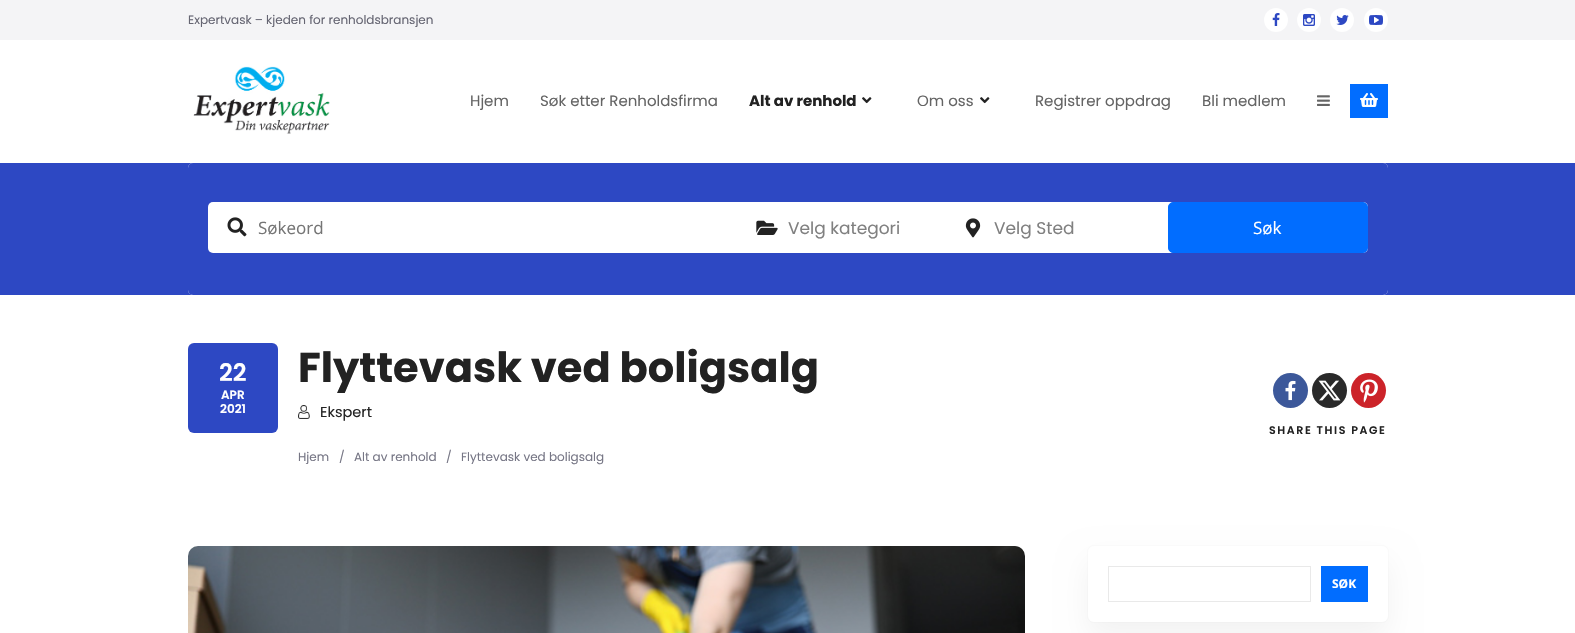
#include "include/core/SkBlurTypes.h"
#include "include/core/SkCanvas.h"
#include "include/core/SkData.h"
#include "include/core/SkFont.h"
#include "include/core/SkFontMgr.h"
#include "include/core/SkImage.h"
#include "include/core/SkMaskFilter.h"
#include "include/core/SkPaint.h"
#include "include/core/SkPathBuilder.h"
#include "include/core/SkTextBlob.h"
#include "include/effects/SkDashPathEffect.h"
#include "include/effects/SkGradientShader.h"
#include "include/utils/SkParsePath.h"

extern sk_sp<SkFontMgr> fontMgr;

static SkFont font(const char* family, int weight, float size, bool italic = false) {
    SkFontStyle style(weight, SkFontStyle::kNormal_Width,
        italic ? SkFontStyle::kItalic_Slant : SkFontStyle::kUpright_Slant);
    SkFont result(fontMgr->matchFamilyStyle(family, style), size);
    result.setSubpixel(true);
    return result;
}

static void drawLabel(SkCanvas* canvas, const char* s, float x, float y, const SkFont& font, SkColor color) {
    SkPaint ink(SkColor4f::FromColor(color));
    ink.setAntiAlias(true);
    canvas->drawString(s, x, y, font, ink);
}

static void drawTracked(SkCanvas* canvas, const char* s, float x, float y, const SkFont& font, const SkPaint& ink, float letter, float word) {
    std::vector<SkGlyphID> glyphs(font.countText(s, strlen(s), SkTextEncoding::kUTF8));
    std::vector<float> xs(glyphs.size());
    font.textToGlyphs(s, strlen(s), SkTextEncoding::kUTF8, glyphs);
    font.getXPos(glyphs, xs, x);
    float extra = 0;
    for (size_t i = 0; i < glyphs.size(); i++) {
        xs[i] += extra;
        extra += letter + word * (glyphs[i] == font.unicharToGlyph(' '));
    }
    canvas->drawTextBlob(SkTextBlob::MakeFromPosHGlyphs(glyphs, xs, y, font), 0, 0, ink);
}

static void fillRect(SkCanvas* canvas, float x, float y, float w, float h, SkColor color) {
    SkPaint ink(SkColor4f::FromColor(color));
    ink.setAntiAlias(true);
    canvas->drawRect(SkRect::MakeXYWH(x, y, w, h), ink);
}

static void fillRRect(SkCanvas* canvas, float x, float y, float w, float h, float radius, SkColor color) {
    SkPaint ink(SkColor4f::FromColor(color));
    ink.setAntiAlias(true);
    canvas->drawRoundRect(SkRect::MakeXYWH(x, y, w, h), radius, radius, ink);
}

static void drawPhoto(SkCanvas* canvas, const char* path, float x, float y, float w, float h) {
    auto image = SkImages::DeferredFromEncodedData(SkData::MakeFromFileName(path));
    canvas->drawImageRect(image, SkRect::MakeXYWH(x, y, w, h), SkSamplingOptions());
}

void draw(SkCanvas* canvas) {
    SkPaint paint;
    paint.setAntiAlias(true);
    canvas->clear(0xFFFFFFFF);
    fillRect(canvas, 0, 0, 1575, 40, 0xFFF4F4F6);
    SkFont font1 = font("Poppins", 400, 12);
    drawLabel(canvas, "Expertvask – kjeden for renholdsbransjen", 188, 24, font1, 0xFF656572);
    paint.setColor(0xFFFFFFFF);
    canvas->drawCircle(1276, 20, 12, paint);
    drawPhoto(canvas, "assets/img1.png", 1272, 13, 8, 13);
    canvas->drawCircle(1309, 20, 12, paint);
    drawPhoto(canvas, "assets/img2.png", 1303, 14, 12, 12);
    canvas->drawCircle(1342, 20, 12, paint);
    drawPhoto(canvas, "assets/img3.png", 1336, 15, 13, 10);
    canvas->drawCircle(1376, 20, 12, paint);
    drawPhoto(canvas, "assets/img4.png", 1369, 15, 14, 10);
    drawPhoto(canvas, "assets/img16.png", 188, 546, 837, 87);
    paint.setStroke(true);
    paint.setStrokeWidth(1);
    paint.setColor(0xFFFCFCFC);
    canvas->drawRoundRect(SkRect::MakeXYWH(1087.5f, 545.5f, 301, 77), 6.5f, 6.5f, paint);
    paint.setStroke(false);
    paint.setColor(0x0D000000);
    paint.setMaskFilter(SkMaskFilter::MakeBlur(kNormal_SkBlurStyle, 15));
    canvas->drawRoundRect(SkRect::MakeXYWH(1088, 561, 300, 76), 6, 6, paint);
    paint.setMaskFilter(nullptr);
    fillRRect(canvas, 1088, 546, 300, 76, 6, 0xFFFFFFFF);
    paint.setStroke(true);
    paint.setColor(0xFFE9E9E9);
    canvas->drawRect(SkRect::MakeXYWH(1108.5f, 566.5f, 202, 35), paint);
    fillRect(canvas, 1321, 566, 47, 36, 0xFF016DFF);
    SkFont font2 = font("Open Sans", 700, 12);
    drawLabel(canvas, "SØK", 1332, 588, font2, 0xFFFFFFFF);
    canvas->save();
    canvas->clipRect(SkRect::MakeXYWH(0, 163, 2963, 132));
    paint.setStrokeWidth(1575);
    paint.setColor(0xFF2D48C3);
    canvas->drawRoundRect(SkRect::MakeXYWH(-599.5f, -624.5f, 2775, 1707), 792.5f, 792.5f, paint);
    canvas->restore();
    drawPhoto(canvas, "assets/img5.png", 193, 66, 137, 68);
    SkFont font3 = font("Poppins", 400, 15);
    drawLabel(canvas, "Hjem", 470, 106, font3, 0xFF646464);
    drawLabel(canvas, "Søk etter Renholdsfirma", 540, 106, font3, 0xFF646464);
    SkFont font4 = font("Poppins", 700, 15);
    drawLabel(canvas, "Alt av renhold", 749, 106, font4, 0xFF222222);
    drawPhoto(canvas, "assets/img6.png", 862, 97, 10, 7);
    drawLabel(canvas, "Om oss", 917, 106, font3, 0xFF646464);
    drawPhoto(canvas, "assets/img6.png", 980, 97, 10, 7);
    drawLabel(canvas, "Registrer oppdrag", 1035, 106, font3, 0xFF646464);
    drawLabel(canvas, "Bli medlem", 1202, 106, font3, 0xFF646464);
    drawPhoto(canvas, "assets/img7.png", 1317, 95, 13, 11);
    fillRect(canvas, 1350, 84, 38, 34, 0xFF016DFF);
    drawPhoto(canvas, "assets/img8.png", 1360, 93, 18, 14);
    fillRRect(canvas, 188, 163, 1200, 132, 5, 0xFF2D48C3);
    fillRRect(canvas, 208, 202, 1160, 51, 5, 0xFFFFFFFF);
    drawPhoto(canvas, "assets/img9.png", 227, 217, 20, 20);
    SkFont font5 = font("Open Sans", 400, 17);
    drawLabel(canvas, "Søkeord", 258, 234, font5, 0xFF757575);
    drawPhoto(canvas, "assets/img10.png", 756, 220, 22, 15);
    SkFont font6 = font("Poppins", 400, 17);
    drawLabel(canvas, "Velg kategori", 788, 234, font6, 0xFF808080);
    drawPhoto(canvas, "assets/img11.png", 965, 218, 16, 20);
    drawLabel(canvas, "Velg Sted", 994, 234, font6, 0xFF808080);
    paint.setStroke(false);
    paint.setColor(0xFF016DFF);
    canvas->drawRoundRect(SkRect::MakeXYWH(1168.5f, 202.5f, 199, 50), 4.5f, 4.5f, paint);
    paint.setStroke(true);
    paint.setStrokeWidth(1);
    canvas->drawRoundRect(SkRect::MakeXYWH(1168.5f, 202.5f, 199, 50), 4.5f, 4.5f, paint);
    drawLabel(canvas, "Søk", 1253, 234, font5, 0xFFFFFFFF);
    fillRRect(canvas, 188, 343, 90, 90, 6, 0xFF2D48C3);
    SkFont font7 = font("Poppins", 600, 24);
    drawLabel(canvas, "22", 219, 381, font7, 0xFFFFFFFF);
    SkFont font8 = font("Poppins", 600, 12);
    drawLabel(canvas, "APR", 221, 399, font8, 0xFFFFFFFF);
    drawLabel(canvas, "2021", 220, 413, font8, 0xFFFFFFFF);
    SkFont font9 = font("Poppins", 700, 41.6f);
    drawLabel(canvas, "Flyttevask ved boligsalg", 298, 382, font9, 0xFF222222);
    drawPhoto(canvas, "assets/img12.png", 298, 405, 12, 14);
    SkFont font10 = font("Poppins", 400, 14.5f);
    drawLabel(canvas, "Ekspert", 320, 417, font10, 0xFF222222);
    drawLabel(canvas, "Hjem", 298, 461, font1, 0xFF767685);
    drawLabel(canvas, "/", 339, 461, font1, 0xFF767685);
    drawLabel(canvas, "Alt av renhold", 354, 461, font1, 0xFF767685);
    drawLabel(canvas, "/", 446, 461, font1, 0xFF767685);
    drawLabel(canvas, "Flyttevask ved boligsalg", 461, 461, font1, 0xFF767685);
    paint.setStroke(false);
    paint.setColor(0xFF3C589A);
    canvas->drawCircle(1290.5f, 390.5f, 17.5f, paint);
    drawPhoto(canvas, "assets/img13.png", 1285, 380, 11, 21);
    paint.setColor(0xFF2A2A2A);
    canvas->drawCircle(1329.5f, 390.5f, 17.5f, paint);
    drawPhoto(canvas, "assets/img14.png", 1318, 380, 23, 21);
    paint.setColor(0xFFCC2329);
    canvas->drawCircle(1368.5f, 390.5f, 17.5f, paint);
    drawPhoto(canvas, "assets/img15.png", 1360, 379, 18, 24);
    SkFont font11 = font("Poppins", 600, 11);
    paint.setColor(0xFF222222);
    drawTracked(canvas, "SHARE THIS PAGE", 1269, 434, font11, paint, 1.6f, 0);
}
